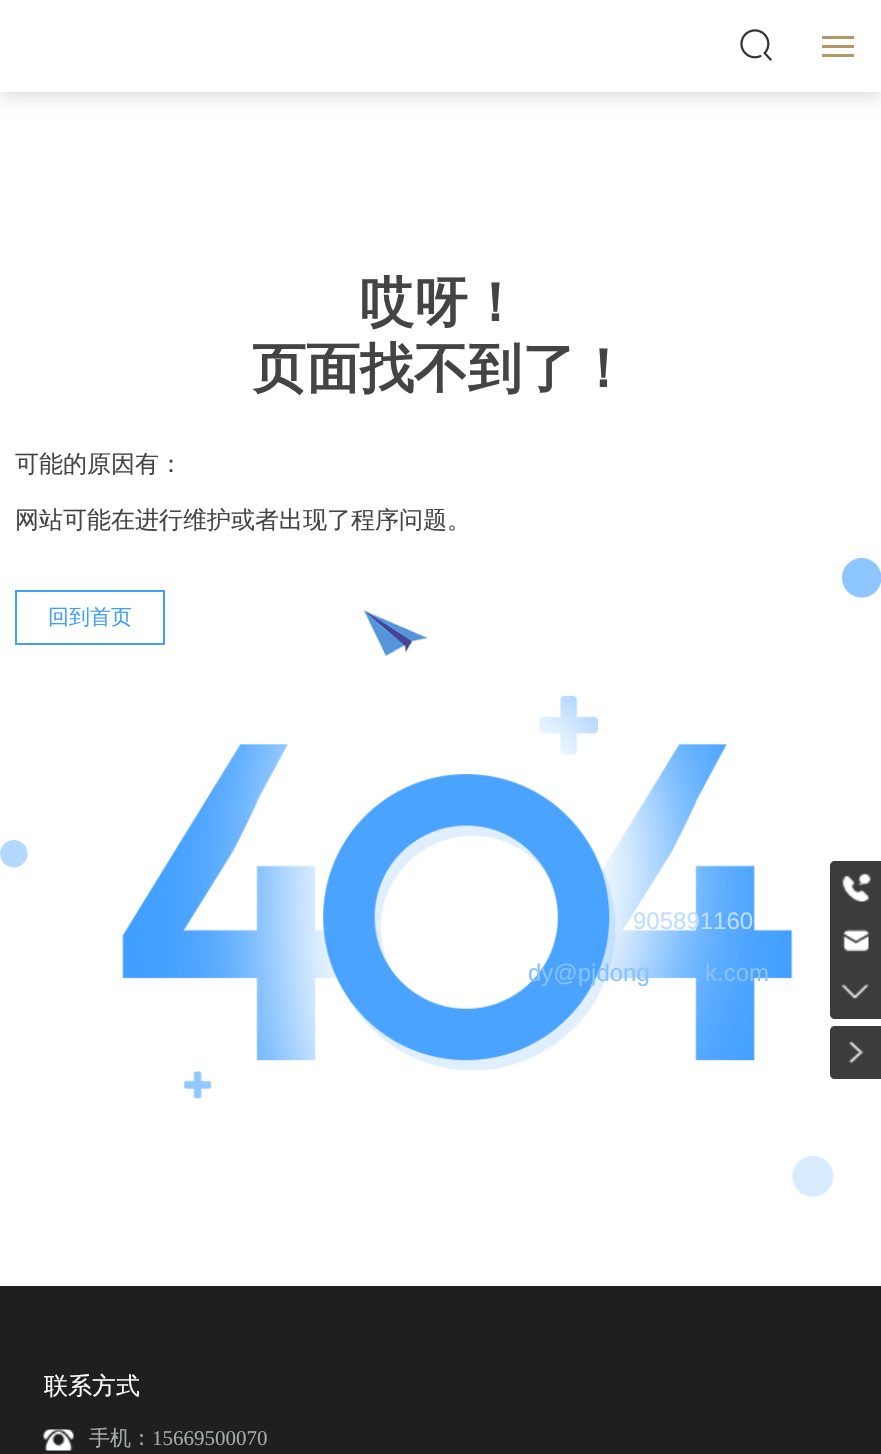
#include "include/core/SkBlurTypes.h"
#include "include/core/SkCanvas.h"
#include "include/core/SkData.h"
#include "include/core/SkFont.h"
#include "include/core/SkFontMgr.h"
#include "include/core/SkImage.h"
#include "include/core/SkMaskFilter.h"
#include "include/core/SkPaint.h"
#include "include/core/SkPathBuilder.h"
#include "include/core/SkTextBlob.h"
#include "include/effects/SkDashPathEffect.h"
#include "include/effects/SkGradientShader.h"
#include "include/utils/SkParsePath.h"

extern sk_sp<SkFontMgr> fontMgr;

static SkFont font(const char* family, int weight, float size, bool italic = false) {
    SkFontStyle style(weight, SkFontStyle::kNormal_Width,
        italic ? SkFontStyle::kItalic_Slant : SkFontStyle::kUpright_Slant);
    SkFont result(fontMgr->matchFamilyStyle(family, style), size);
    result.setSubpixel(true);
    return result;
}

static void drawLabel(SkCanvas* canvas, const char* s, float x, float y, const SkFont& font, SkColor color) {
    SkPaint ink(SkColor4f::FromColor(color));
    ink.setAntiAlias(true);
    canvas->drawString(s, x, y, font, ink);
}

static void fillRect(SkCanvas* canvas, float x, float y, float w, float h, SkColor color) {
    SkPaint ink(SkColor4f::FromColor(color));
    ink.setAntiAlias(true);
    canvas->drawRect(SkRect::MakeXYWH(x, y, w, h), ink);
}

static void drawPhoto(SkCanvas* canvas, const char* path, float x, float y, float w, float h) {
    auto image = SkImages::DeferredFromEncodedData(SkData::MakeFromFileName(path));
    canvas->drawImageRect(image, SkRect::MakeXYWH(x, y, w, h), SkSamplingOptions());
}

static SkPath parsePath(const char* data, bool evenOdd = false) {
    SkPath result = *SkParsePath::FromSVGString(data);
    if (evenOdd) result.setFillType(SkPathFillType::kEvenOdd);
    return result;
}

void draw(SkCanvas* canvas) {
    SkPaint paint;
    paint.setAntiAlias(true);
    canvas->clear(0xFFFFFFFF);
    paint.setColor(0x33000000);
    paint.setMaskFilter(SkMaskFilter::MakeBlur(kNormal_SkBlurStyle, 11));
    canvas->drawRect(SkRect::MakeXYWH(0, 0, 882, 92), paint);
    paint.setMaskFilter(nullptr);
    fillRect(canvas, 0, 0, 881, 92, 0xFFFFFFFF);
    drawPhoto(canvas, "assets/img1.png", 740, 29, 32, 32);
    fillRect(canvas, 822, 36, 32, 3, 0xFFB59665);
    fillRect(canvas, 822, 45, 32, 3, 0xFFB59665);
    fillRect(canvas, 822, 54, 32, 3, 0xFFB59665);
    SkFont font1 = font("WenQuanYi Zen Hei", 700, 54);
    drawLabel(canvas, "哎呀！", 360, 321, font1, 0xFF444444);
    drawLabel(canvas, "页面找不到了！", 252, 387, font1, 0xFF444444);
    SkFont font2 = font("WenQuanYi Zen Hei", 500, 24);
    drawLabel(canvas, "可能的原因有：", 15, 472, font2, 0xFF444444);
    drawLabel(canvas, "网站可能在进行维护或者出现了程序问题。", 15, 528, font2, 0xFF444444);
    drawPhoto(canvas, "assets/img2.png", 0, 558, 881, 639);
    paint.setStroke(true);
    paint.setStrokeWidth(2);
    paint.setColor(0xFF409EFF);
    canvas->drawRect(SkRect::MakeXYWH(16, 591, 148, 53), paint);
    SkFont font3 = font("WenQuanYi Zen Hei", 500, 21);
    drawLabel(canvas, "回到首页", 48, 624, font3, 0xFF409EFF);
    paint.setStroke(false);
    paint.setColor(0xFF3C3C3C);
    canvas->drawPath(parsePath("M835 861H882V1019H835C832 1019 830 1017 830 1014V866C830 863 832 861 835 861Z"), paint);
    drawPhoto(canvas, "assets/img3.png", 842, 872, 30, 30);
    SkFont font4 = font("Liberation Sans", 400, 24);
    drawLabel(canvas, "905891160", 633, 929, font4, 0xFFBEDEFF);
    drawPhoto(canvas, "assets/img4.png", 842, 929, 28, 23);
    drawLabel(canvas, "dy@pjdong", 528, 981, font4, 0xFF87C2FF);
    drawLabel(canvas, "k.com", 705, 981, font4, 0xFF87C2FF);
    drawPhoto(canvas, "assets/img5.png", 841, 983, 28, 17);
    canvas->drawPath(parsePath("M835 1026H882V1079H835C832 1079 830 1077 830 1074V1031C830 1028 832 1026 835 1026Z"), paint);
    drawPhoto(canvas, "assets/img6.png", 848, 1041, 16, 23);
    fillRect(canvas, 0, 1286, 881, 168, 0xFF1F1F1F);
    drawLabel(canvas, "联系方式", 44, 1394, font2, 0xFFFFFFFF);
    drawPhoto(canvas, "assets/img7.png", 43, 1429, 31, 22);
    drawLabel(canvas, "手机：", 89, 1445, font3, 0xFFA5AAAA);
    SkFont font5 = font("Liberation Serif", 400, 21);
    drawLabel(canvas, "15669500070", 152, 1445, font5, 0xFFA5AAAA);
}
